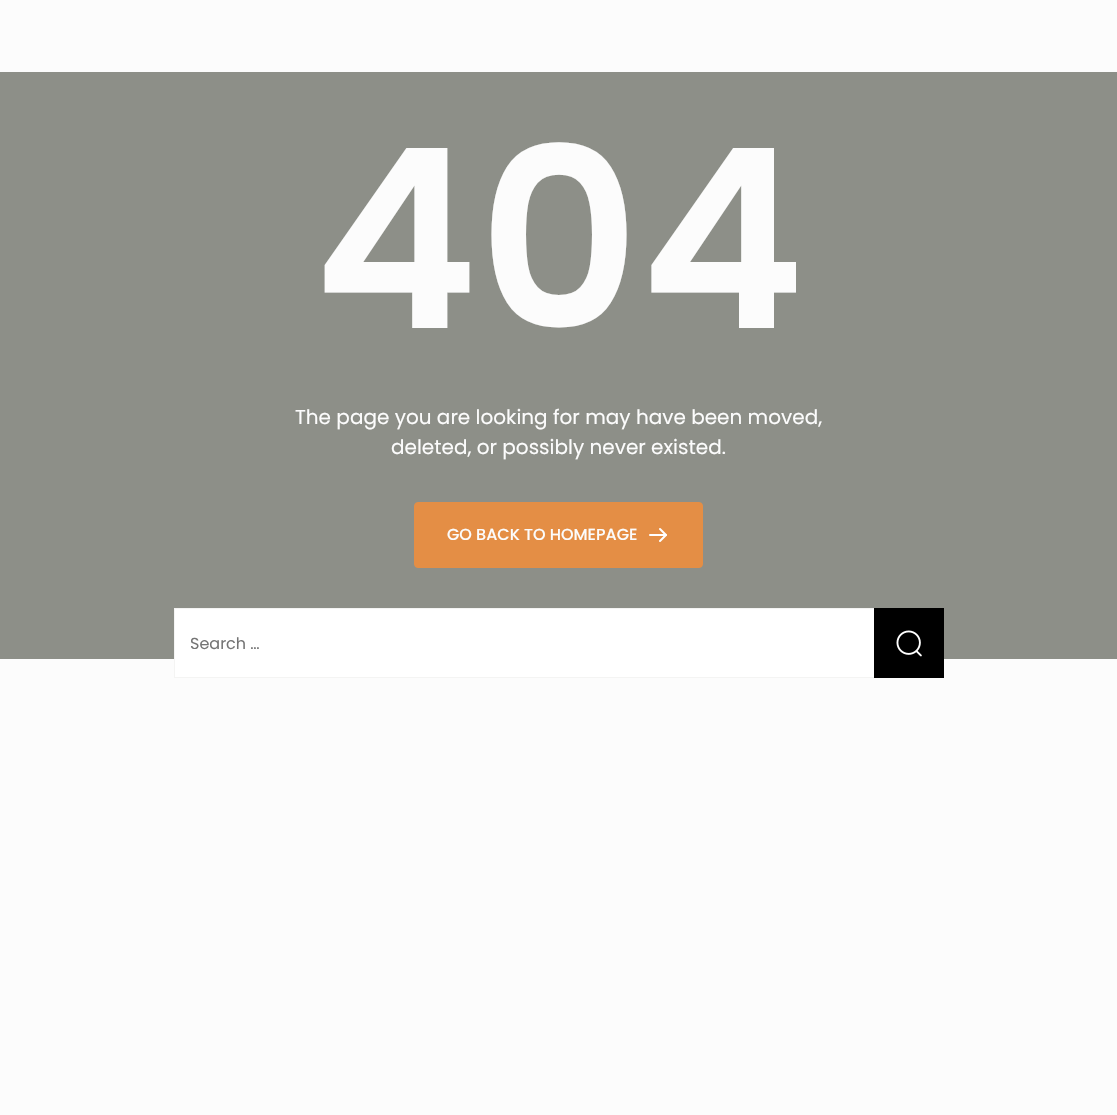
#include "include/core/SkBlurTypes.h"
#include "include/core/SkCanvas.h"
#include "include/core/SkData.h"
#include "include/core/SkFont.h"
#include "include/core/SkFontMgr.h"
#include "include/core/SkImage.h"
#include "include/core/SkMaskFilter.h"
#include "include/core/SkPaint.h"
#include "include/core/SkPathBuilder.h"
#include "include/core/SkTextBlob.h"
#include "include/effects/SkDashPathEffect.h"
#include "include/effects/SkGradientShader.h"
#include "include/utils/SkParsePath.h"

extern sk_sp<SkFontMgr> fontMgr;

static SkFont font(const char* family, int weight, float size, bool italic = false) {
    SkFontStyle style(weight, SkFontStyle::kNormal_Width,
        italic ? SkFontStyle::kItalic_Slant : SkFontStyle::kUpright_Slant);
    SkFont result(fontMgr->matchFamilyStyle(family, style), size);
    result.setSubpixel(true);
    return result;
}

static void drawLabel(SkCanvas* canvas, const char* s, float x, float y, const SkFont& font, SkColor color) {
    SkPaint ink(SkColor4f::FromColor(color));
    ink.setAntiAlias(true);
    canvas->drawString(s, x, y, font, ink);
}

static void fillRect(SkCanvas* canvas, float x, float y, float w, float h, SkColor color) {
    SkPaint ink(SkColor4f::FromColor(color));
    ink.setAntiAlias(true);
    canvas->drawRect(SkRect::MakeXYWH(x, y, w, h), ink);
}

static void drawPhoto(SkCanvas* canvas, const char* path, float x, float y, float w, float h) {
    auto image = SkImages::DeferredFromEncodedData(SkData::MakeFromFileName(path));
    canvas->drawImageRect(image, SkRect::MakeXYWH(x, y, w, h), SkSamplingOptions());
}

static SkPath parsePath(const char* data, bool evenOdd = false) {
    SkPath result = *SkParsePath::FromSVGString(data);
    if (evenOdd) result.setFillType(SkPathFillType::kEvenOdd);
    return result;
}

void draw(SkCanvas* canvas) {
    SkPaint paint;
    paint.setAntiAlias(true);
    canvas->clear(0xFFFCFCFC);
    fillRect(canvas, 0, 72, 1117, 587, 0xFF8D8F88);
    SkFont font1 = font("Poppins", 600, 250);
    drawLabel(canvas, "404", 313, 328, font1, 0xFFFCFCFC);
    SkFont font2 = font("Poppins", 400, 20);
    drawLabel(canvas, "The page you are looking for may have been moved,", 295, 424, font2, 0xFFFCFCFC);
    drawLabel(canvas, "deleted, or possibly never existed.", 391, 454, font2, 0xFFFCFCFC);
    paint.setColor(0xFFE48E45);
    canvas->drawRoundRect(SkRect::MakeXYWH(414.5f, 502.5f, 288, 65), 3.5f, 3.5f, paint);
    paint.setStroke(true);
    paint.setStrokeWidth(1);
    canvas->drawRoundRect(SkRect::MakeXYWH(414.5f, 502.5f, 288, 65), 3.5f, 3.5f, paint);
    SkFont font3 = font("Poppins", 500, 16);
    drawLabel(canvas, "GO BACK TO HOMEPAGE", 447, 540, font3, 0xFFFCFCFC);
    paint.setStrokeWidth(2);
    paint.setStrokeCap(SkPaint::kRound_Cap);
    paint.setColor(0xFFFFFFFF);
    canvas->drawPath(parsePath("M650 535H666"), paint);
    paint.setStrokeJoin(SkPaint::kRound_Join);
    canvas->drawPath(parsePath("M660 529L666 535L660 541"), paint);
    fillRect(canvas, 175, 609, 699, 68, 0xFFFFFFFF);
    paint.setStrokeWidth(1);
    paint.setStrokeCap(SkPaint::kButt_Cap);
    paint.setStrokeJoin(SkPaint::kMiter_Join);
    paint.setColor(0xFFF4F4F3);
    canvas->drawRect(SkRect::MakeXYWH(174.5f, 608.5f, 769, 69), paint);
    SkFont font4 = font("Poppins", 400, 16);
    drawLabel(canvas, "Search …", 190, 649, font4, 0xFF757575);
    fillRect(canvas, 874, 608, 70, 70, 0xFF000000);
    drawPhoto(canvas, "assets/img1.png", 896, 630, 26, 27);
}
